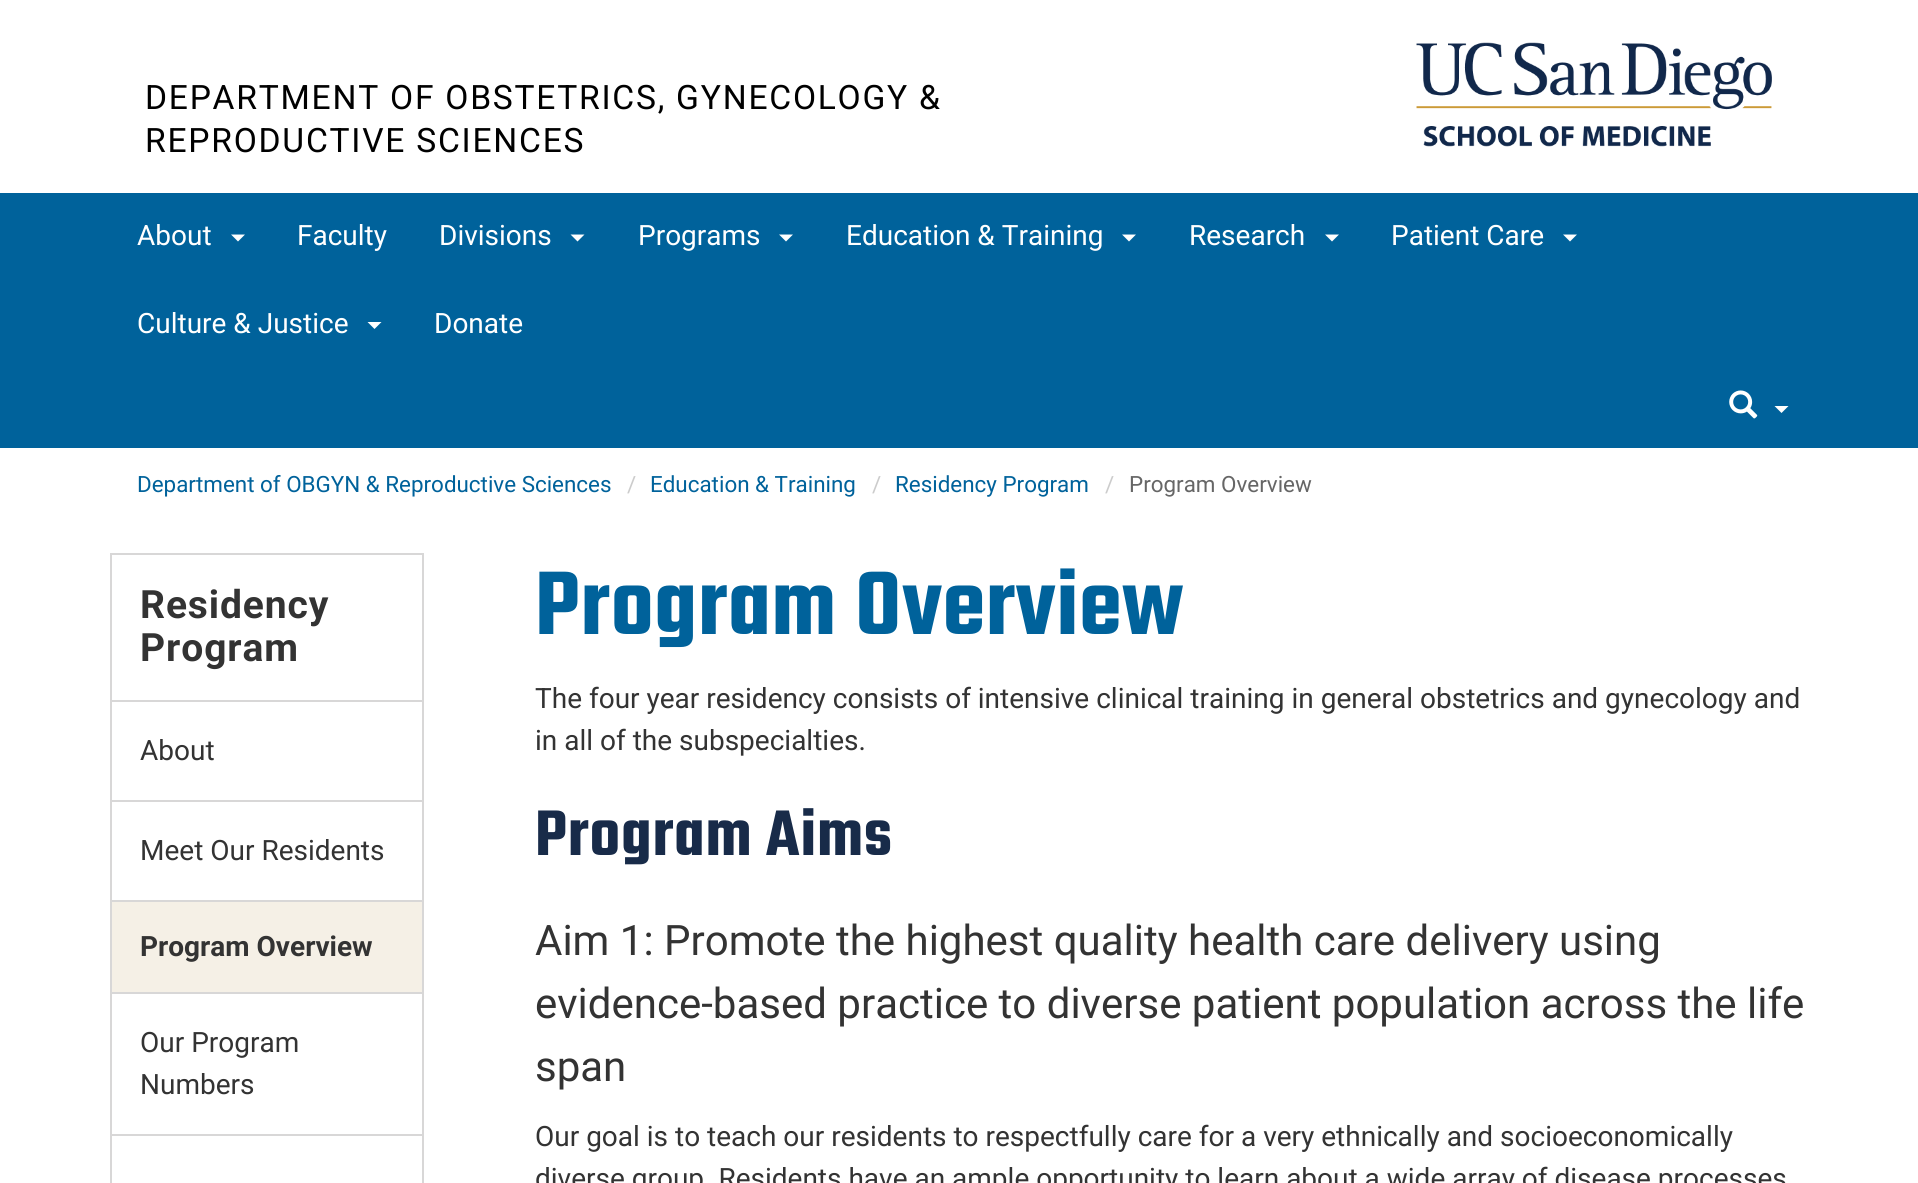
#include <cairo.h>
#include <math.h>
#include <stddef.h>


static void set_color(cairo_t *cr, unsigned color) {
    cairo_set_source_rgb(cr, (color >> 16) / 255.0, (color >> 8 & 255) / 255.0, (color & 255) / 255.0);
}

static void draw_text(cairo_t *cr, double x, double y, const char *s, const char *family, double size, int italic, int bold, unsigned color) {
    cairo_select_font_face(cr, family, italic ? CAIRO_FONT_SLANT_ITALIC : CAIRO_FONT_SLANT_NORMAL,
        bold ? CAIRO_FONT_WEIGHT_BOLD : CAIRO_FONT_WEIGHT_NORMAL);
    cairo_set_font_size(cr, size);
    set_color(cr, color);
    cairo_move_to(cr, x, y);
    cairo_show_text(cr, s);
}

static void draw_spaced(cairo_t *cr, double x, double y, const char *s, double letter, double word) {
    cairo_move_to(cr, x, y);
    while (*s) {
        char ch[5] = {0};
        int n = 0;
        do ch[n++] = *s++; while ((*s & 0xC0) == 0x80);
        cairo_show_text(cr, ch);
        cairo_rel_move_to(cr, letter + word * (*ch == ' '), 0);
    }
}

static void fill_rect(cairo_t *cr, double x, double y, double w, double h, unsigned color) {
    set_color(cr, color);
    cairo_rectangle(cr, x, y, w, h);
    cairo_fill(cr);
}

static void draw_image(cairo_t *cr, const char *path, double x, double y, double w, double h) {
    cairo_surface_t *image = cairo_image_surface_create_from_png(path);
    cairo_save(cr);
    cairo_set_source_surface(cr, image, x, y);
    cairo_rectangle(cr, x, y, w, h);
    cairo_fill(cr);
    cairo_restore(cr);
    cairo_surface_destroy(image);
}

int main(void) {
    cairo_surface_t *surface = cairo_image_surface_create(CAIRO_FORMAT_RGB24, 1918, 1183);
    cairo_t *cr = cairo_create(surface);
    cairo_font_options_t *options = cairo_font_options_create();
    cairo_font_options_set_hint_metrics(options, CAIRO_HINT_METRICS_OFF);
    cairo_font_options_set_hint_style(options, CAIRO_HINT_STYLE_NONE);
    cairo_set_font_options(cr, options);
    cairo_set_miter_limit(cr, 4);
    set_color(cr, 0xFFFFFF);
    cairo_paint(cr);
    cairo_select_font_face(cr, "Roboto", CAIRO_FONT_SLANT_NORMAL, CAIRO_FONT_WEIGHT_NORMAL);
    cairo_set_font_size(cr, 33.6);
    set_color(cr, 0x000000);
    draw_spaced(cr, 145, 109, "DEPARTMENT OF OBSTETRICS, GYNECOLOGY &", 1.75, 0);
    draw_spaced(cr, 145, 152, "REPRODUCTIVE SCIENCES", 1.75, 0);
    draw_image(cr, "assets/img1.png", 1416, 42, 356, 105);
    fill_rect(cr, 0, 193, 1918, 255, 0x00629B);
    draw_text(cr, 137, 245, "About", "Roboto", 28, 0, 0, 0xFFFFFF);
    cairo_new_path(cr);
    cairo_move_to(cr, 231, 234.5);
    cairo_line_to(cr, 245, 234.5);
    cairo_line_to(cr, 238, 241.5);
    cairo_close_path(cr);
    cairo_fill(cr);
    draw_text(cr, 297, 245, "Faculty", "Roboto", 28, 0, 0, 0xFFFFFF);
    draw_text(cr, 439, 245, "Divisions", "Roboto", 28, 0, 0, 0xFFFFFF);
    cairo_new_path(cr);
    cairo_move_to(cr, 570.5, 234.5);
    cairo_line_to(cr, 584.5, 234.5);
    cairo_line_to(cr, 577.5, 241.5);
    cairo_close_path(cr);
    cairo_fill(cr);
    draw_text(cr, 638, 245, "Programs", "Roboto", 28, 0, 0, 0xFFFFFF);
    cairo_new_path(cr);
    cairo_move_to(cr, 779, 234.5);
    cairo_line_to(cr, 793, 234.5);
    cairo_line_to(cr, 786, 241.5);
    cairo_close_path(cr);
    cairo_fill(cr);
    draw_text(cr, 846, 245, "Education & Training", "Roboto", 28, 0, 0, 0xFFFFFF);
    cairo_new_path(cr);
    cairo_move_to(cr, 1122, 234.5);
    cairo_line_to(cr, 1136, 234.5);
    cairo_line_to(cr, 1129, 241.5);
    cairo_close_path(cr);
    cairo_fill(cr);
    draw_text(cr, 1189, 245, "Research", "Roboto", 28, 0, 0, 0xFFFFFF);
    cairo_new_path(cr);
    cairo_move_to(cr, 1325, 234.5);
    cairo_line_to(cr, 1339, 234.5);
    cairo_line_to(cr, 1332, 241.5);
    cairo_close_path(cr);
    cairo_fill(cr);
    draw_text(cr, 1391, 245, "Patient Care", "Roboto", 28, 0, 0, 0xFFFFFF);
    cairo_new_path(cr);
    cairo_move_to(cr, 1563, 234.5);
    cairo_line_to(cr, 1577, 234.5);
    cairo_line_to(cr, 1570, 241.5);
    cairo_close_path(cr);
    cairo_fill(cr);
    draw_text(cr, 137, 333, "Culture & Justice", "Roboto", 28, 0, 0, 0xFFFFFF);
    cairo_new_path(cr);
    cairo_move_to(cr, 367.5, 322);
    cairo_line_to(cr, 381.5, 322);
    cairo_line_to(cr, 374.5, 329);
    cairo_close_path(cr);
    cairo_fill(cr);
    draw_text(cr, 434, 333, "Donate", "Roboto", 28, 0, 0, 0xFFFFFF);
    draw_image(cr, "assets/img2.png", 1729, 390, 29, 29);
    cairo_new_path(cr);
    cairo_move_to(cr, 1774.5, 406);
    cairo_line_to(cr, 1788.5, 406);
    cairo_line_to(cr, 1781.5, 413);
    cairo_close_path(cr);
    cairo_fill(cr);
    draw_text(cr, 137, 492, "Department of OBGYN & Reproductive Sciences", "Roboto", 22.4, 0, 0, 0x00629B);
    draw_text(cr, 627, 492, "/", "Roboto", 22.4, 0, 0, 0xCCCCCC);
    draw_text(cr, 650, 492, "Education & Training", "Roboto", 22.4, 0, 0, 0x00629B);
    draw_text(cr, 872, 492, "/", "Roboto", 22.4, 0, 0, 0xCCCCCC);
    draw_text(cr, 895, 492, "Residency Program", "Roboto", 22.4, 0, 0, 0x00629B);
    draw_text(cr, 1105, 492, "/", "Roboto", 22.4, 0, 0, 0xCCCCCC);
    draw_text(cr, 1129, 492, "Program Overview", "Roboto", 22.4, 0, 0, 0x666666);
    cairo_rectangle(cr, 111, 554, 312, 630);
    set_color(cr, 0xD8D7D7);
    cairo_stroke(cr);
    cairo_select_font_face(cr, "Roboto", CAIRO_FONT_SLANT_NORMAL, CAIRO_FONT_WEIGHT_BOLD);
    cairo_set_font_size(cr, 39);
    set_color(cr, 0x333333);
    draw_spaced(cr, 140, 618, "Residency", 0.9, 0);
    draw_spaced(cr, 140, 661, "Program", 0.9, 0);
    fill_rect(cr, 112, 700, 310, 2, 0xD8D7D7);
    draw_text(cr, 140, 760, "About", "Roboto", 28, 0, 0, 0x333333);
    fill_rect(cr, 112, 800, 310, 2, 0xD8D7D7);
    draw_text(cr, 140, 860, "Meet Our Residents", "Roboto", 28, 0, 0, 0x333333);
    fill_rect(cr, 112, 902, 310, 90, 0xF5F0E6);
    fill_rect(cr, 112, 900, 310, 2, 0xD8D7D7);
    draw_text(cr, 140, 956, "Program Overview", "Roboto", 28, 0, 1, 0x333333);
    fill_rect(cr, 112, 992, 310, 2, 0xD8D7D7);
    draw_text(cr, 140, 1052, "Our Program", "Roboto", 28, 0, 0, 0x333333);
    draw_text(cr, 140, 1094, "Numbers", "Roboto", 28, 0, 0, 0x333333);
    fill_rect(cr, 112, 1134, 310, 2, 0xD8D7D7);
    cairo_select_font_face(cr, "Teko SemiBold", CAIRO_FONT_SLANT_NORMAL, CAIRO_FONT_WEIGHT_NORMAL);
    cairo_set_font_size(cr, 98);
    set_color(cr, 0x00629B);
    draw_spaced(cr, 535, 634, "Program Overview", 0.9, 0);
    draw_text(cr, 535, 708, "The four year residency consists of intensive clinical training in general obstetrics and gynecology and", "Roboto", 28, 0, 0, 0x333333);
    draw_text(cr, 535, 750, "in all of the subspecialties.", "Roboto", 28, 0, 0, 0x333333);
    cairo_select_font_face(cr, "Teko SemiBold", CAIRO_FONT_SLANT_NORMAL, CAIRO_FONT_WEIGHT_NORMAL);
    cairo_set_font_size(cr, 70);
    set_color(cr, 0x182B49);
    draw_spaced(cr, 535, 855, "Program Aims", 0.9, 0);
    draw_text(cr, 535, 955, "Aim 1: Promote the highest quality health care delivery using", "Roboto", 42, 0, 0, 0x333333);
    draw_text(cr, 535, 1018, "evidence-based practice to diverse patient population across the life", "Roboto", 42, 0, 0, 0x333333);
    draw_text(cr, 535, 1081, "span", "Roboto", 42, 0, 0, 0x333333);
    draw_text(cr, 535, 1146, "Our goal is to teach our residents to respectfully care for a very ethnically and socioeconomically", "Roboto", 28, 0, 0, 0x333333);
    draw_text(cr, 535, 1188, "diverse group. Residents have an ample opportunity to learn about a wide array of disease processes", "Roboto", 28, 0, 0, 0x333333);
    cairo_surface_write_to_png(surface, "output.png");
    cairo_font_options_destroy(options);
    cairo_destroy(cr);
    cairo_surface_destroy(surface);
    return 0;
}
